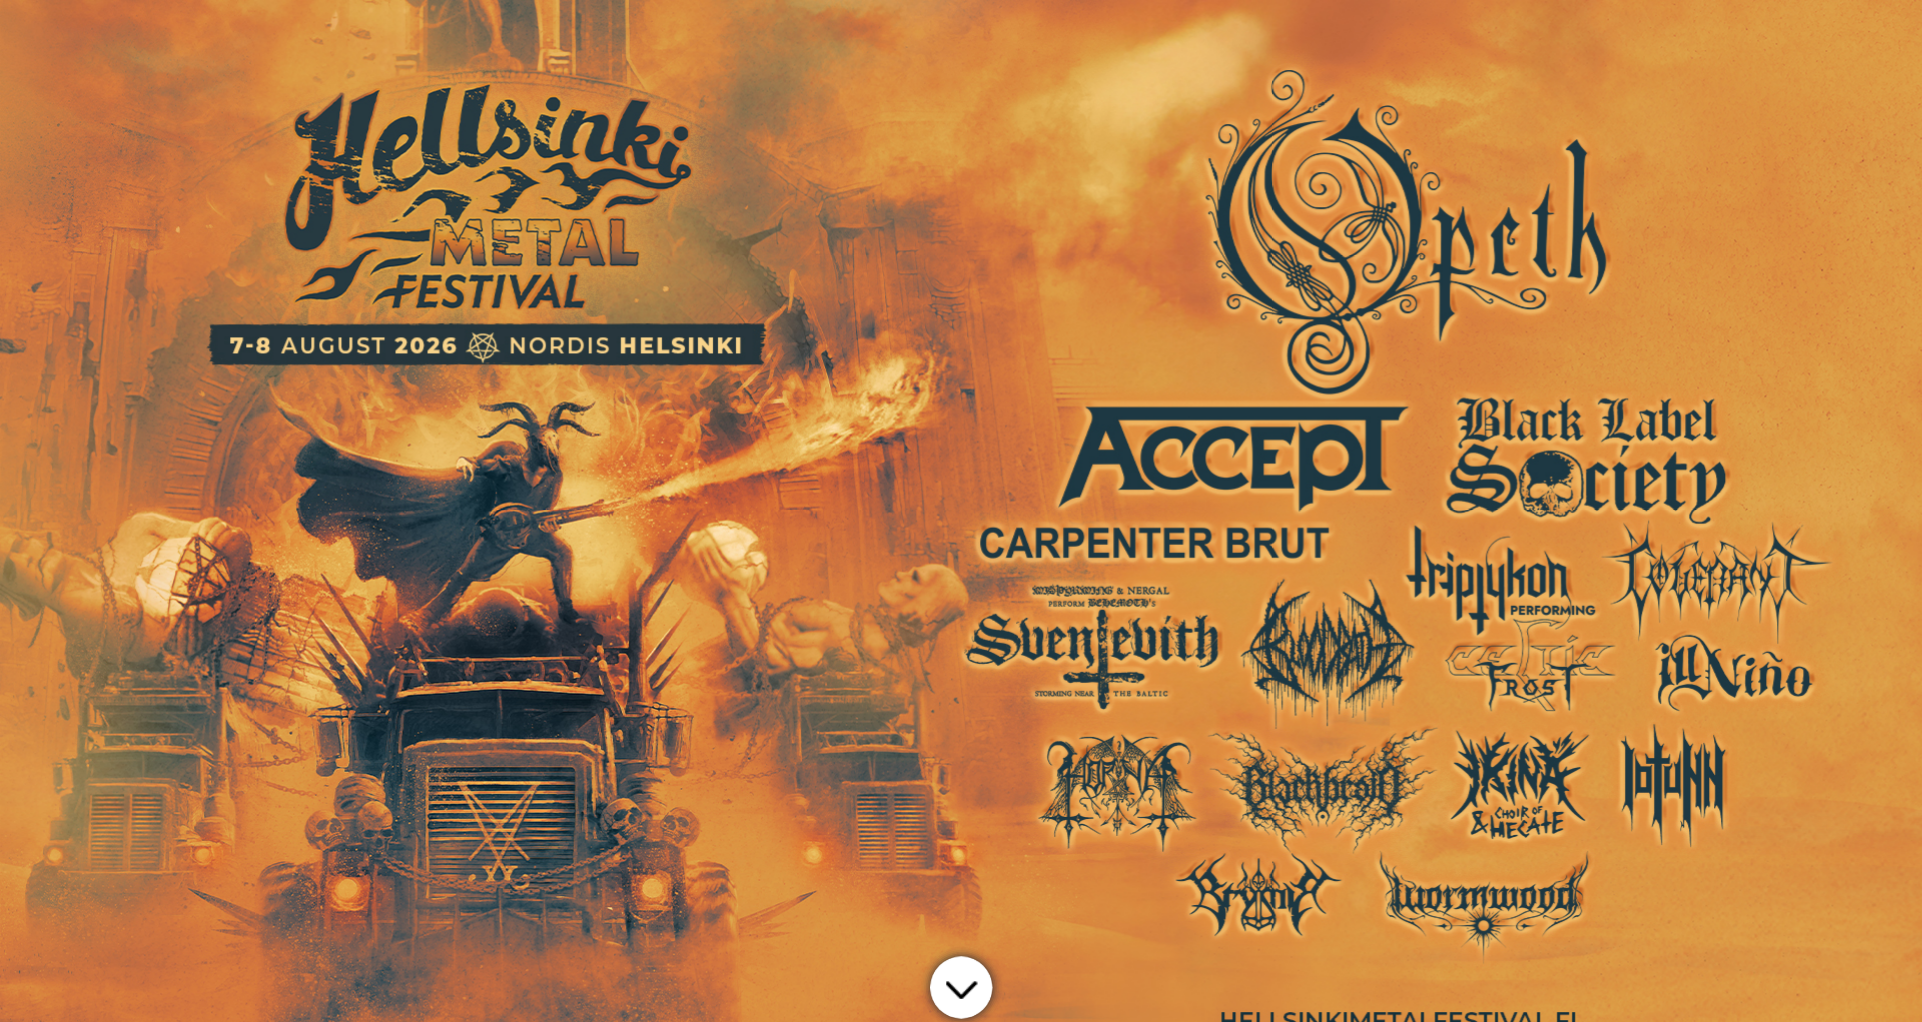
#include <cairo.h>
#include <math.h>
#include <stddef.h>


static void set_color(cairo_t *cr, unsigned color) {
    cairo_set_source_rgb(cr, (color >> 16) / 255.0, (color >> 8 & 255) / 255.0, (color & 255) / 255.0);
}

static void rounded_rect(cairo_t *cr, double x, double y, double w, double h, double r) {
    cairo_new_sub_path(cr);
    cairo_arc(cr, x + w - r, y + h - r, r, 0, M_PI / 2);
    cairo_arc(cr, x + r, y + h - r, r, M_PI / 2, M_PI);
    cairo_arc(cr, x + r, y + r, r, M_PI, 1.5 * M_PI);
    cairo_arc(cr, x + w - r, y + r, r, 1.5 * M_PI, 2 * M_PI);
    cairo_close_path(cr);
}

static void draw_shadow(cairo_t *cr, double x, double y, double w, double h, double r, double blur, double alpha) {
    cairo_push_group_with_content(cr, CAIRO_CONTENT_ALPHA);
    cairo_set_operator(cr, CAIRO_OPERATOR_SOURCE);
    for (int i = 15; i >= -15 && fmin(w, h) + blur * i / 3 > 0; i -= 2) {
        double e = blur * i / 6;
        cairo_set_source_rgba(cr, 0, 0, 0, alpha * erfc((i - 1) / 8.5) / 2);
        rounded_rect(cr, x - e, y - e, w + 2 * e, h + 2 * e, fmax(0, fmin(r + e + blur * .6, fmin(w, h) / 2 + e)));
        cairo_fill(cr);
    }
    cairo_pattern_t *soft = cairo_pop_group(cr);
    cairo_mask(cr, soft);
    cairo_pattern_destroy(soft);
}

static void draw_image(cairo_t *cr, const char *path, double x, double y, double w, double h) {
    cairo_surface_t *image = cairo_image_surface_create_from_png(path);
    cairo_save(cr);
    cairo_set_source_surface(cr, image, x, y);
    cairo_rectangle(cr, x, y, w, h);
    cairo_fill(cr);
    cairo_restore(cr);
    cairo_surface_destroy(image);
}

int main(void) {
    cairo_surface_t *surface = cairo_image_surface_create(CAIRO_FORMAT_RGB24, 1922, 1022);
    cairo_t *cr = cairo_create(surface);
    cairo_font_options_t *options = cairo_font_options_create();
    cairo_font_options_set_hint_metrics(options, CAIRO_HINT_METRICS_OFF);
    cairo_font_options_set_hint_style(options, CAIRO_HINT_STYLE_NONE);
    cairo_set_font_options(cr, options);
    cairo_set_miter_limit(cr, 4);
    set_color(cr, 0xFFFFFF);
    cairo_paint(cr);
    draw_image(cr, "assets/img1.png", 0, 0, 1922, 1022);
    set_color(cr, 0x333333);
    draw_shadow(cr, 930, 956, 63, 63, 31.5, 5, 1);
    draw_image(cr, "assets/img2.png", 930, 956, 63, 63);
    cairo_surface_write_to_png(surface, "output.png");
    cairo_font_options_destroy(options);
    cairo_destroy(cr);
    cairo_surface_destroy(surface);
    return 0;
}
